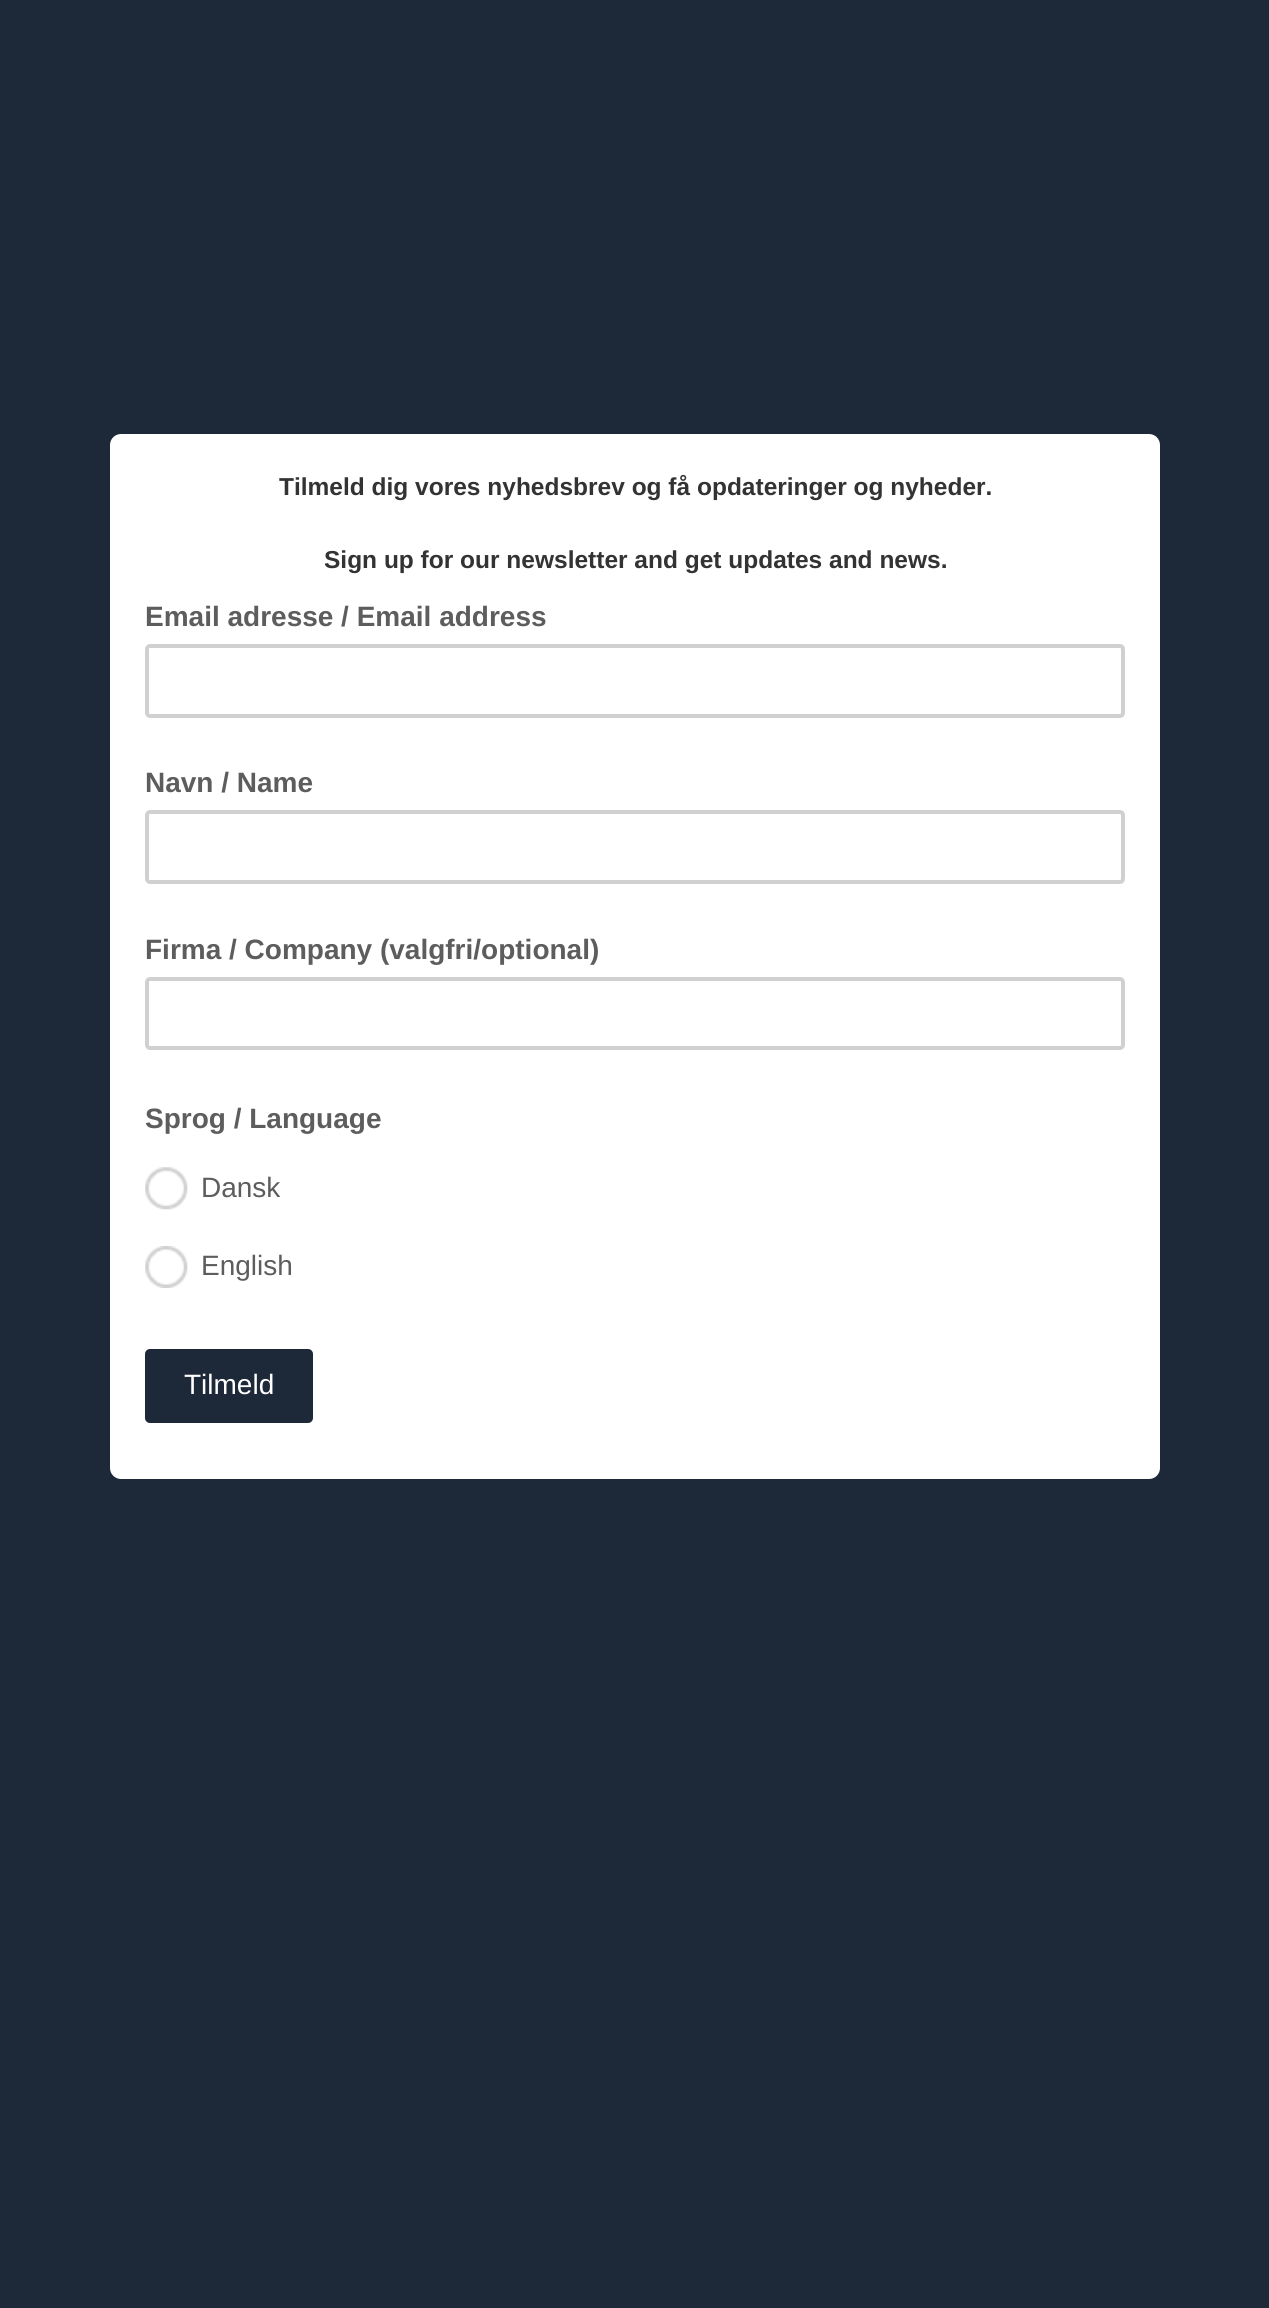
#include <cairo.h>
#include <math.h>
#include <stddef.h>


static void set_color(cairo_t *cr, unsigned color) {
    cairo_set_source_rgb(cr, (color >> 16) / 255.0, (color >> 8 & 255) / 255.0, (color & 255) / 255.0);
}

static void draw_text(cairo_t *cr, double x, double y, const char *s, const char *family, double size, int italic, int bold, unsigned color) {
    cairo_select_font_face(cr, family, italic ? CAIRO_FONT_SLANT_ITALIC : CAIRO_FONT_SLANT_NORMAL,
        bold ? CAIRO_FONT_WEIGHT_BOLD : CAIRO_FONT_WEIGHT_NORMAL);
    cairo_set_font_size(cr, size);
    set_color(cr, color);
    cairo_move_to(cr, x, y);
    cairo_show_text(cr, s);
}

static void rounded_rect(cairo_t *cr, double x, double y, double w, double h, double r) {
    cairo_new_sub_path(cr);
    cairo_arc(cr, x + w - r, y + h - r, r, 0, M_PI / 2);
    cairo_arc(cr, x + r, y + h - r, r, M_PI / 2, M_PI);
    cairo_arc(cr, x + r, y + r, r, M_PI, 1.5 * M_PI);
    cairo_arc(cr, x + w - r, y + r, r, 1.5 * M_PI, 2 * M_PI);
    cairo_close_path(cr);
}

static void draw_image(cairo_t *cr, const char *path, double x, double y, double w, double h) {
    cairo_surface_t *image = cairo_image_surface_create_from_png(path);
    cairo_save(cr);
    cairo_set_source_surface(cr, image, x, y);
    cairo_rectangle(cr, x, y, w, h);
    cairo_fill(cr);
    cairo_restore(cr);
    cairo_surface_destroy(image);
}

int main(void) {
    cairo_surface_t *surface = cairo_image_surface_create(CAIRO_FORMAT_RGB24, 1269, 2308);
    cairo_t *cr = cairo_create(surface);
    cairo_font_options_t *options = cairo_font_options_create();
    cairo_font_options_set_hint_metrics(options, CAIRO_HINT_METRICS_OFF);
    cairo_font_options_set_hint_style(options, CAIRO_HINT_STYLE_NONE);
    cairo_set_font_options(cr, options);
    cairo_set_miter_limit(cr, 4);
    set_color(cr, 0x1D2839);
    cairo_paint(cr);
    set_color(cr, 0xFFFFFF);
    rounded_rect(cr, 110, 434, 1050, 1045, 11);
    cairo_fill(cr);
    draw_text(cr, 279, 495, "Tilmeld dig vores nyhedsbrev og få opdateringer og nyheder.", "Liberation Sans", 24.5, 0, 1, 0x333333);
    draw_text(cr, 324, 568, "Sign up for our newsletter and get updates and news.", "Liberation Sans", 24.5, 0, 1, 0x333333);
    draw_text(cr, 145, 626, "Email adresse / Email address", "Liberation Sans", 28, 0, 1, 0x5D5D5D);
    rounded_rect(cr, 147, 646, 976, 70, 3);
    set_color(cr, 0xD0D0D0);
    cairo_set_line_width(cr, 4);
    cairo_stroke(cr);
    draw_text(cr, 145, 792, "Navn / Name", "Liberation Sans", 28, 0, 1, 0x5D5D5D);
    rounded_rect(cr, 147, 812, 976, 70, 3);
    set_color(cr, 0xD0D0D0);
    cairo_stroke(cr);
    draw_text(cr, 145, 959, "Firma / Company (valgfri/optional)", "Liberation Sans", 28, 0, 1, 0x5D5D5D);
    rounded_rect(cr, 147, 979, 976, 69, 3);
    set_color(cr, 0xD0D0D0);
    cairo_stroke(cr);
    draw_text(cr, 145, 1128, "Sprog / Language", "Liberation Sans", 28, 0, 1, 0x5D5D5D);
    draw_image(cr, "assets/img1.png", 145, 1167, 43, 43);
    draw_text(cr, 201, 1197, "Dansk", "Liberation Sans", 28, 0, 0, 0x5D5D5D);
    draw_image(cr, "assets/img2.png", 145, 1246, 43, 42);
    draw_text(cr, 201, 1275, "English", "Liberation Sans", 28, 0, 0, 0x5D5D5D);
    set_color(cr, 0x1D2839);
    rounded_rect(cr, 145, 1349, 168, 74, 5);
    cairo_fill(cr);
    draw_text(cr, 184, 1394, "Tilmeld", "Liberation Sans", 28, 0, 0, 0xFFFFFF);
    cairo_surface_write_to_png(surface, "output.png");
    cairo_font_options_destroy(options);
    cairo_destroy(cr);
    cairo_surface_destroy(surface);
    return 0;
}
